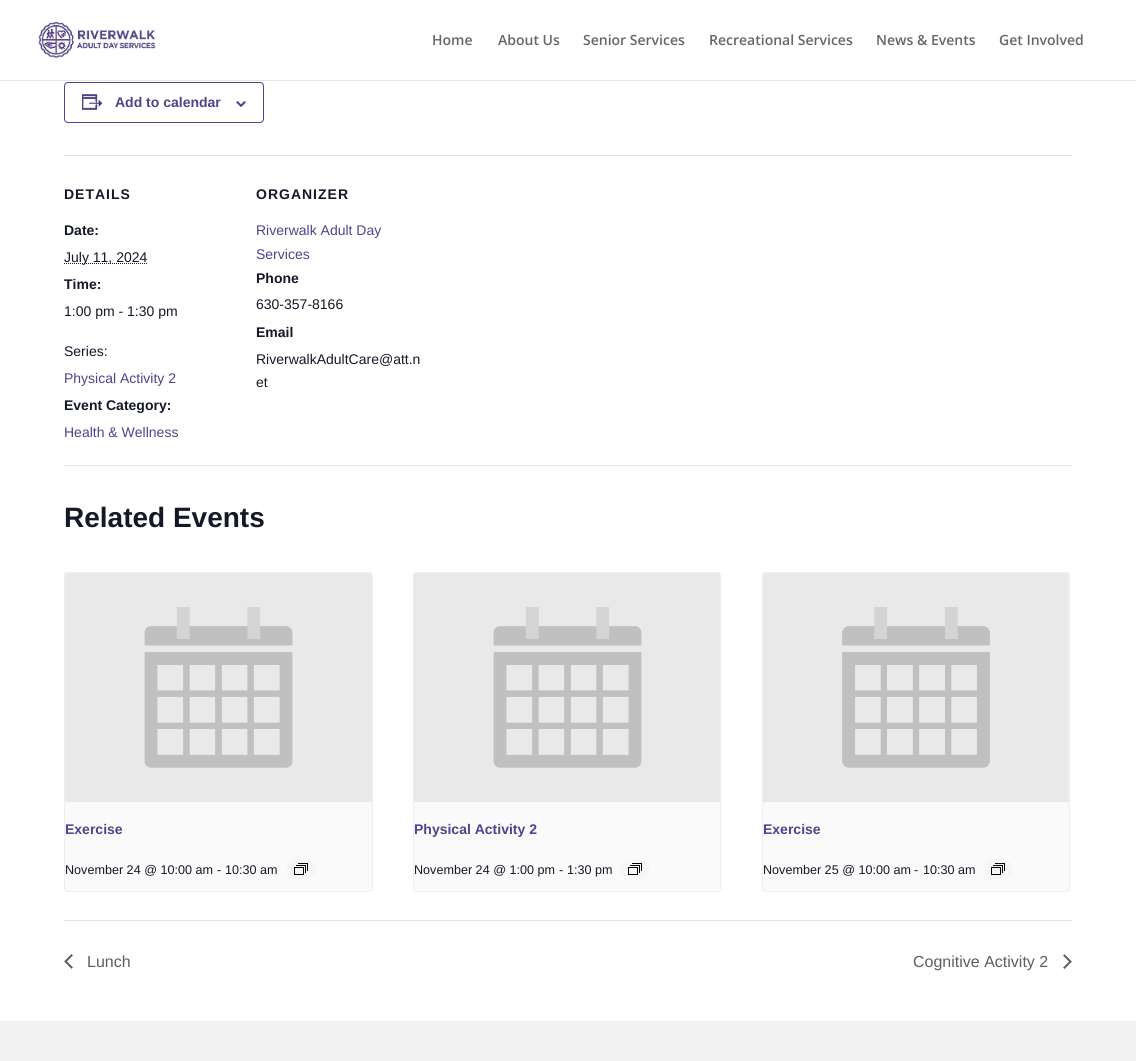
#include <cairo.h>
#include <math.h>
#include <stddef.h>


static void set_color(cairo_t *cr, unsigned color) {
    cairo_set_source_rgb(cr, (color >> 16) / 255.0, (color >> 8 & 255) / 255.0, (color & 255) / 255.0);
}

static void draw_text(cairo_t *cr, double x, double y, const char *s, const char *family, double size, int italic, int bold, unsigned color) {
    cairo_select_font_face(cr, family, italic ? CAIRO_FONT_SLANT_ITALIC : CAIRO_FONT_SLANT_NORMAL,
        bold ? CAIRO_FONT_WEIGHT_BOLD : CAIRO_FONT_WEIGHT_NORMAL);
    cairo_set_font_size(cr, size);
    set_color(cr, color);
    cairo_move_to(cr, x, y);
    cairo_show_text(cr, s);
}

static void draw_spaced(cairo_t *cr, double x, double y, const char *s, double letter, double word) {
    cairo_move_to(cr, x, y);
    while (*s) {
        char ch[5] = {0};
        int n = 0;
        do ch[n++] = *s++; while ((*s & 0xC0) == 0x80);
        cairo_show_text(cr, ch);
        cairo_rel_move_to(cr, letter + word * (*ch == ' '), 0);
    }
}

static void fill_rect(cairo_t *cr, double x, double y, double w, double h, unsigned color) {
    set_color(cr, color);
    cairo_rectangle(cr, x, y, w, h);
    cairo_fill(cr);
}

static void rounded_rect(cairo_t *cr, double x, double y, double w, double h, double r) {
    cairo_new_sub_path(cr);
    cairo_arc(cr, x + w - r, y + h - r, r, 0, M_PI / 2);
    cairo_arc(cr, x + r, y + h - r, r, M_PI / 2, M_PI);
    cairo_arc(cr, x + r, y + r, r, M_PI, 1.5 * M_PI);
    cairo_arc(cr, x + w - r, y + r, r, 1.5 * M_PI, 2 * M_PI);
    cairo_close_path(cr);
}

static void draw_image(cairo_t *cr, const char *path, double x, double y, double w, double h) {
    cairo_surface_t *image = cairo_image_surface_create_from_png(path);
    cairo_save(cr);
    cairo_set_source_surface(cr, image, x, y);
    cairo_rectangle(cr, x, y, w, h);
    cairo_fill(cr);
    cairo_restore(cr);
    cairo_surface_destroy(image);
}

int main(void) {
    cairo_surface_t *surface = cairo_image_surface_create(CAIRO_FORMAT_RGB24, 1136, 1061);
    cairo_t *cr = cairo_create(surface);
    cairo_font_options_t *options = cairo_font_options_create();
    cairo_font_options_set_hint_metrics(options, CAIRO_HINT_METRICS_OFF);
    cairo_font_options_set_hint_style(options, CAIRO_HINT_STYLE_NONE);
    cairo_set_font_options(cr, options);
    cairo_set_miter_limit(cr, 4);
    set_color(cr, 0xFFFFFF);
    cairo_paint(cr);
    fill_rect(cr, 0, 80, 1136, 1, 0xE6E6E6);
    draw_image(cr, "assets/img1.png", 38, 21, 118, 38);
    draw_text(cr, 432, 45, "Home", "Open Sans SemiBold", 14, 0, 0, 0x666666);
    draw_text(cr, 498, 45, "About Us", "Open Sans SemiBold", 14, 0, 0, 0x666666);
    draw_text(cr, 583, 45, "Senior Services", "Open Sans SemiBold", 14, 0, 0, 0x666666);
    draw_text(cr, 709, 45, "Recreational Services", "Open Sans SemiBold", 14, 0, 0, 0x666666);
    draw_text(cr, 876, 45, "News & Events", "Open Sans SemiBold", 14, 0, 0, 0x666666);
    draw_text(cr, 999, 45, "Get Involved", "Open Sans SemiBold", 14, 0, 0, 0x666666);
    rounded_rect(cr, 64.5, 82.5, 199, 40, 3.5);
    set_color(cr, 0x51428B);
    cairo_set_line_width(cr, 1);
    cairo_stroke(cr);
    draw_image(cr, "assets/img2.png", 82, 94, 21, 16);
    draw_text(cr, 115, 107, "Add to calendar", "Liberation Sans", 14, 0, 1, 0x51428B);
    draw_image(cr, "assets/img3.png", 236, 101, 10, 6);
    fill_rect(cr, 64, 155, 1008, 1, 0xE4E4E4);
    set_color(cr, 0x141827);
    draw_spaced(cr, 64, 199, "DETAILS", 1, 0);
    draw_text(cr, 64, 235, "Date:", "Liberation Sans", 14, 0, 1, 0x141827);
    cairo_new_path(cr);
    cairo_move_to(cr, 64, 263.5);
    cairo_line_to(cr, 147.5, 263.5);
    cairo_set_dash(cr, (double[]){1, 1}, 2, 0);
    cairo_stroke(cr);
    draw_text(cr, 64, 262, "July 11, 2024", "Liberation Sans", 14, 0, 0, 0x141827);
    draw_text(cr, 64, 289, "Time:", "Liberation Sans", 14, 0, 1, 0x141827);
    draw_text(cr, 64, 316, "1:00 pm - 1:30 pm", "Liberation Sans", 14, 0, 0, 0x141827);
    draw_text(cr, 64, 356, "Series:", "Liberation Sans", 14, 0, 0, 0x141827);
    draw_text(cr, 64, 383, "Physical Activity 2", "Liberation Sans", 14, 0, 0, 0x51428B);
    draw_text(cr, 64, 410, "Event Category:", "Liberation Sans", 14, 0, 1, 0x141827);
    draw_text(cr, 64, 437, "Health & Wellness", "Liberation Sans", 14, 0, 0, 0x51428B);
    cairo_select_font_face(cr, "Liberation Sans", CAIRO_FONT_SLANT_NORMAL, CAIRO_FONT_WEIGHT_BOLD);
    set_color(cr, 0x141827);
    draw_spaced(cr, 256, 199, "ORGANIZER", 1, 0);
    draw_text(cr, 256, 235, "Riverwalk Adult Day", "Liberation Sans", 14, 0, 0, 0x51428B);
    draw_text(cr, 256, 259, "Services", "Liberation Sans", 14, 0, 0, 0x51428B);
    draw_text(cr, 256, 283, "Phone", "Liberation Sans", 14, 0, 1, 0x141827);
    draw_text(cr, 256, 309, "630-357-8166", "Liberation Sans", 14, 0, 0, 0x141827);
    draw_text(cr, 256, 337, "Email", "Liberation Sans", 14, 0, 1, 0x141827);
    draw_text(cr, 256, 364, "RiverwalkAdultCare@att.n", "Liberation Sans", 14, 0, 0, 0x141827);
    draw_text(cr, 256, 387, "et", "Liberation Sans", 14, 0, 0, 0x141827);
    fill_rect(cr, 64, 465, 1008, 1, 0xE4E4E4);
    draw_text(cr, 64, 527, "Related Events", "Liberation Sans", 28, 0, 1, 0x141827);
    set_color(cr, 0xFAFAFA);
    rounded_rect(cr, 64.5, 572.5, 308, 319, 2.5);
    cairo_fill_preserve(cr);
    set_color(cr, 0xEEEEEE);
    cairo_set_dash(cr, NULL, 0, 0);
    cairo_stroke(cr);
    draw_image(cr, "assets/img4.png", 65, 573, 307, 229);
    draw_text(cr, 65, 834, "Exercise", "Liberation Sans", 14, 0, 1, 0x51428B);
    draw_text(cr, 65, 874, "November 24 @ 10:00 am", "Liberation Sans", 12.6, 0, 0, 0x141827);
    draw_text(cr, 217, 874, "-", "Liberation Sans", 12.6, 0, 0, 0x141827);
    draw_text(cr, 225, 874, "10:30 am", "Liberation Sans", 12.6, 0, 0, 0x141827);
    set_color(cr, 0xF7F6F6);
    rounded_rect(cr, 286, 859, 30, 20, 10);
    cairo_fill(cr);
    draw_image(cr, "assets/img5.png", 294, 863, 14, 12);
    set_color(cr, 0xFAFAFA);
    rounded_rect(cr, 413.5, 572.5, 307, 319, 2.5);
    cairo_fill_preserve(cr);
    set_color(cr, 0xEEEEEE);
    cairo_stroke(cr);
    draw_image(cr, "assets/img6.png", 414, 573, 306, 229);
    draw_text(cr, 414, 834, "Physical Activity 2", "Liberation Sans", 14, 0, 1, 0x51428B);
    draw_text(cr, 414, 874, "November 24 @ 1:00 pm", "Liberation Sans", 12.6, 0, 0, 0x141827);
    draw_text(cr, 559, 874, "-", "Liberation Sans", 12.6, 0, 0, 0x141827);
    draw_text(cr, 567, 874, "1:30 pm", "Liberation Sans", 12.6, 0, 0, 0x141827);
    set_color(cr, 0xF7F6F6);
    rounded_rect(cr, 620, 859, 30, 20, 10);
    cairo_fill(cr);
    draw_image(cr, "assets/img5.png", 628, 863, 14, 12);
    set_color(cr, 0xFAFAFA);
    rounded_rect(cr, 762.5, 572.5, 307, 319, 2.5);
    cairo_fill_preserve(cr);
    set_color(cr, 0xEEEEEE);
    cairo_stroke(cr);
    draw_image(cr, "assets/img7.png", 763, 573, 306, 229);
    draw_text(cr, 763, 834, "Exercise", "Liberation Sans", 14, 0, 1, 0x51428B);
    draw_text(cr, 763, 874, "November 25 @ 10:00 am", "Liberation Sans", 12.6, 0, 0, 0x141827);
    draw_text(cr, 914, 874, "-", "Liberation Sans", 12.6, 0, 0, 0x141827);
    draw_text(cr, 923, 874, "10:30 am", "Liberation Sans", 12.6, 0, 0, 0x141827);
    set_color(cr, 0xF7F6F6);
    rounded_rect(cr, 983, 859, 30, 20, 10);
    cairo_fill(cr);
    draw_image(cr, "assets/img5.png", 991, 863, 14, 12);
    fill_rect(cr, 64, 920, 1008, 1, 0xE4E4E4);
    draw_image(cr, "assets/img8.png", 64, 954, 9, 15);
    draw_text(cr, 87, 967, "Lunch", "Liberation Sans", 16, 0, 0, 0x5D5D5D);
    draw_text(cr, 913, 967, "Cognitive Activity 2", "Liberation Sans", 16, 0, 0, 0x5D5D5D);
    draw_image(cr, "assets/img9.png", 1063, 954, 9, 15);
    fill_rect(cr, 0, 1021, 1136, 40, 0xF2F2F2);
    cairo_surface_write_to_png(surface, "output.png");
    cairo_font_options_destroy(options);
    cairo_destroy(cr);
    cairo_surface_destroy(surface);
    return 0;
}
